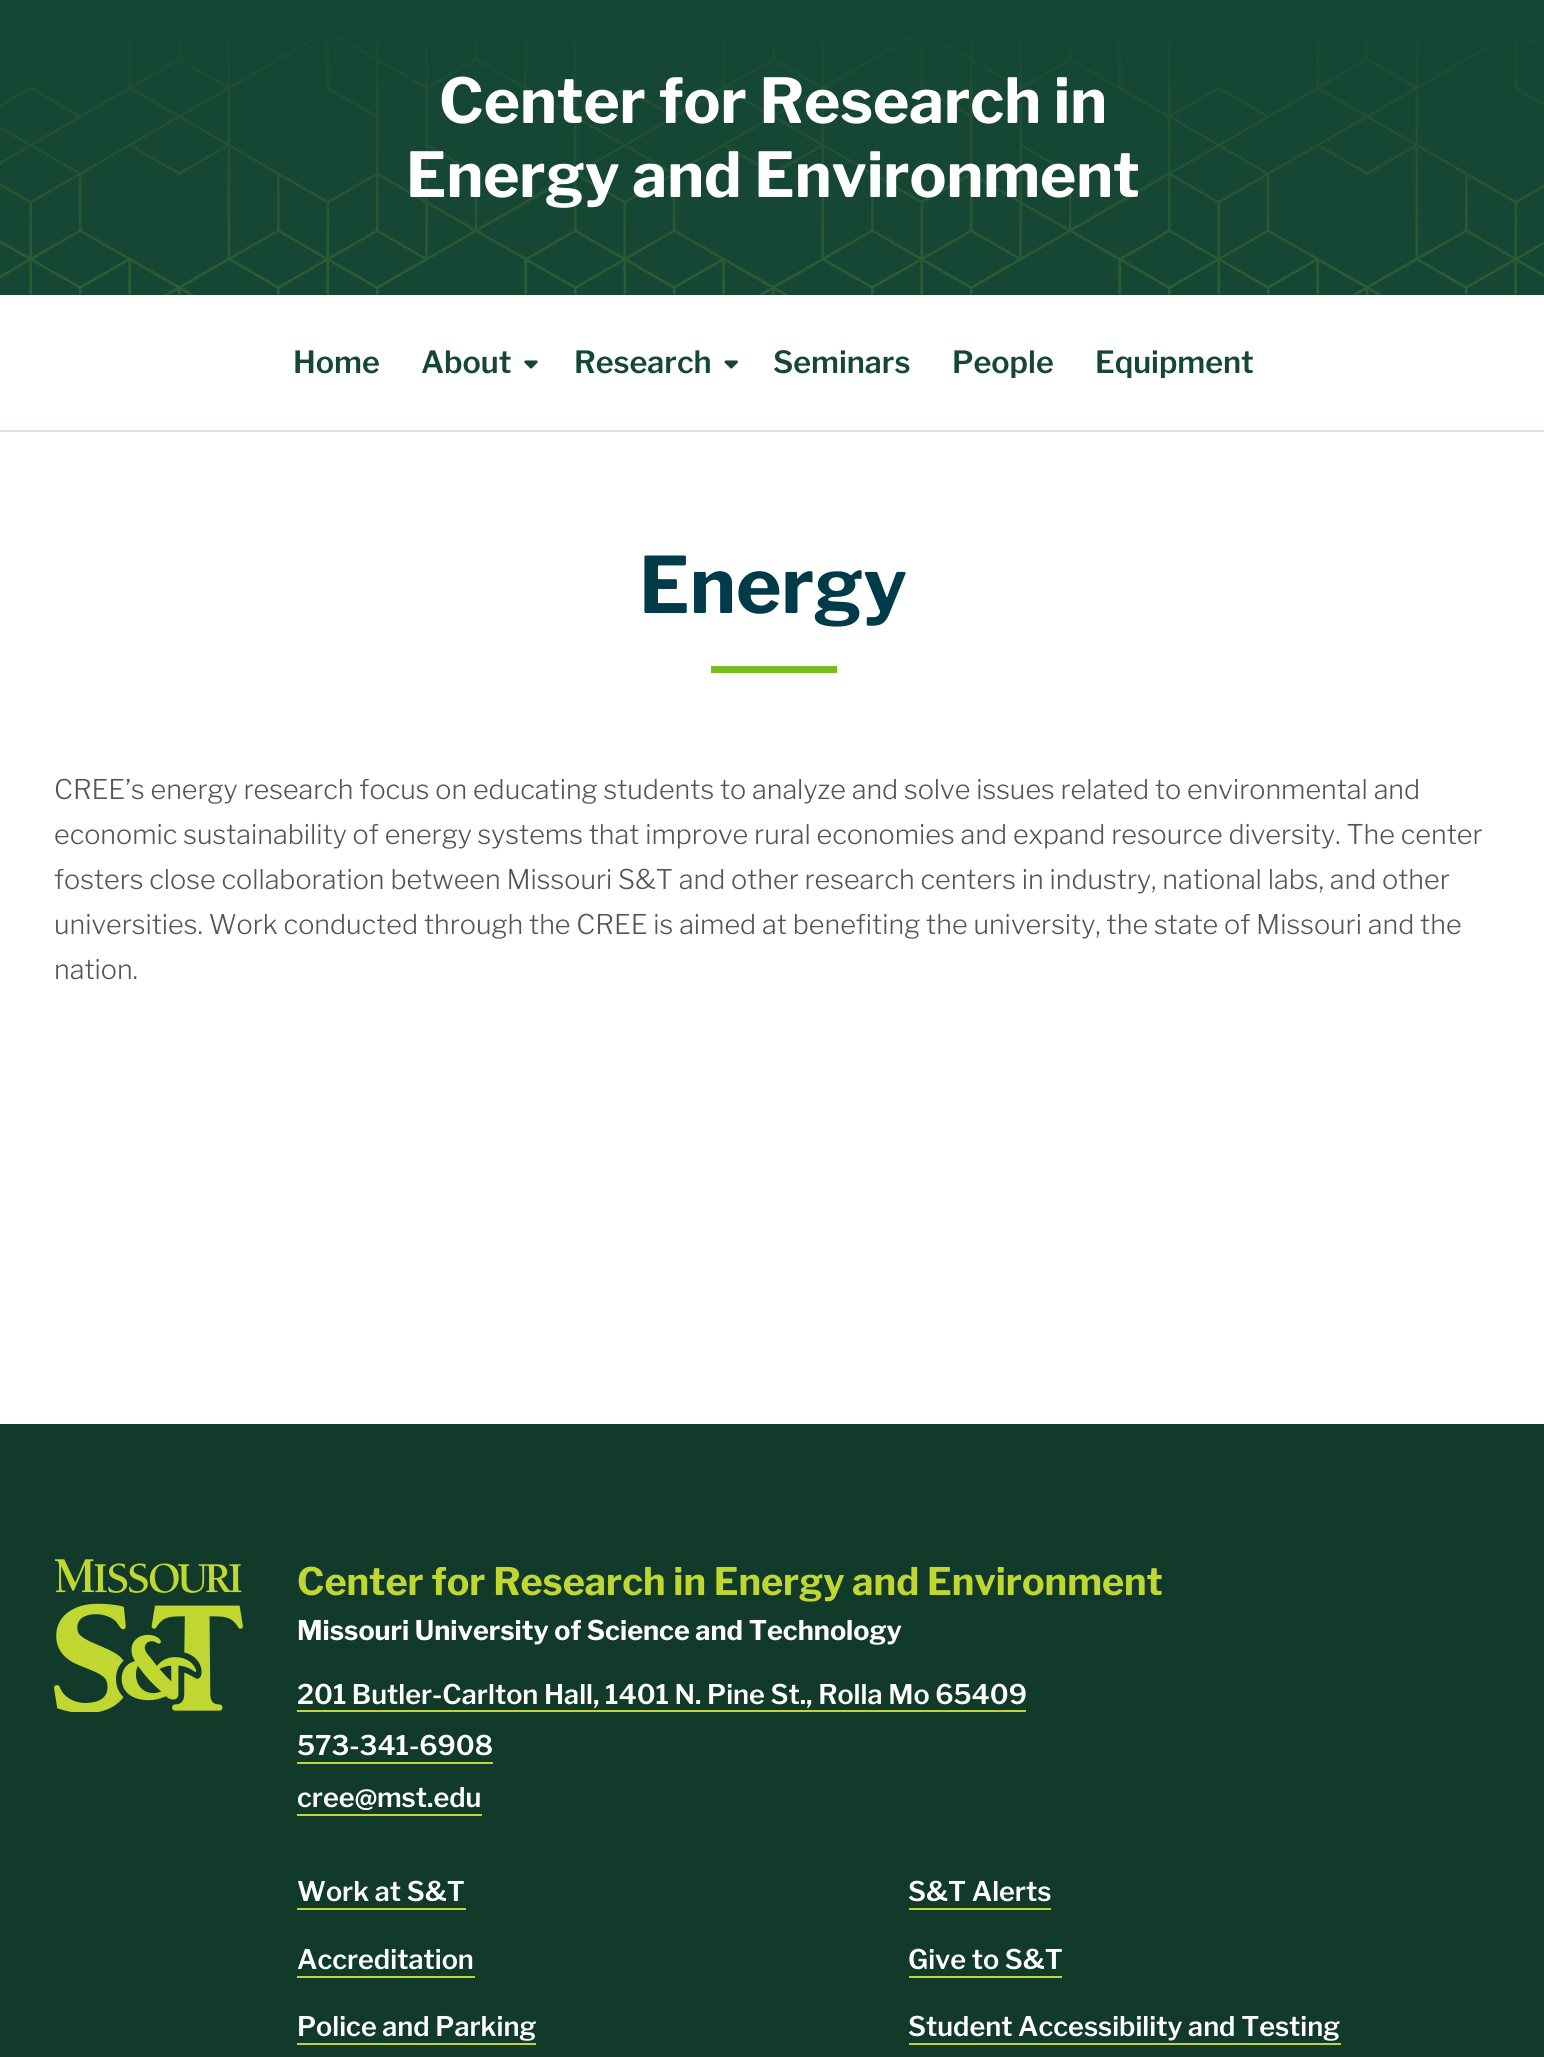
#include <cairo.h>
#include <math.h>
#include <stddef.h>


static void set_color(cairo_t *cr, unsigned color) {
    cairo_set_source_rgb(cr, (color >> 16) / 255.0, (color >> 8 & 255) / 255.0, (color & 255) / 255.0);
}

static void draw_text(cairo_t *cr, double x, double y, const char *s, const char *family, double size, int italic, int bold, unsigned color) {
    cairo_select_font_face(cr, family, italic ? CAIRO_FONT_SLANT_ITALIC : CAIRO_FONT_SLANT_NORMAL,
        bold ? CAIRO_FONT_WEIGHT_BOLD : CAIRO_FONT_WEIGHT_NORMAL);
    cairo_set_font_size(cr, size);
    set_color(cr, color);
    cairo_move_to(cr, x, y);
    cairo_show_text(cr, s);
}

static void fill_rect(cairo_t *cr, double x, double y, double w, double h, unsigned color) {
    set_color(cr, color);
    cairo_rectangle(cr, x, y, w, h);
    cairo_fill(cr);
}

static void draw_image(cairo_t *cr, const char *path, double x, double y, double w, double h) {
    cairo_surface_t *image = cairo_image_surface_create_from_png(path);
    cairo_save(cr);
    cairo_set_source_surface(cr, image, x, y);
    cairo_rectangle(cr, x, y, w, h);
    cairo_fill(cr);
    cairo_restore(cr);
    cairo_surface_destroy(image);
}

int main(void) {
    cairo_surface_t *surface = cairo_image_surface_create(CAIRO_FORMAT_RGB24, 1544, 2057);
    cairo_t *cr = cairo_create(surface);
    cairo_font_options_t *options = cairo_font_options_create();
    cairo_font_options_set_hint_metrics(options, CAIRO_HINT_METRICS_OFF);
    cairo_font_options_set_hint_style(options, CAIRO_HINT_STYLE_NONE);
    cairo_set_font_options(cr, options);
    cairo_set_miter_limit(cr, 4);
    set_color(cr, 0xFFFFFF);
    cairo_paint(cr);
    fill_rect(cr, 0, 0, 1544, 295, 0x154734);
    draw_image(cr, "assets/img1.png", 0, 37, 1544, 258);
    draw_text(cr, 439, 123, "Center for Research in", "Libre Franklin", 61.75, 0, 1, 0xFFFFFF);
    draw_text(cr, 406, 197, "Energy and Environment", "Libre Franklin", 61.75, 0, 1, 0xFFFFFF);
    fill_rect(cr, 0, 430, 1544, 2, 0xDCE3E4);
    draw_text(cr, 293, 373, "Home", "Libre Franklin SemiBold", 30.5, 0, 0, 0x154734);
    draw_text(cr, 421, 373, "About", "Libre Franklin SemiBold", 30.5, 0, 0, 0x154734);
    draw_image(cr, "assets/img2.png", 524, 360, 14, 9);
    draw_text(cr, 574, 373, "Research", "Libre Franklin SemiBold", 30.5, 0, 0, 0x154734);
    draw_image(cr, "assets/img3.png", 724, 360, 14, 9);
    draw_text(cr, 773, 373, "Seminars", "Libre Franklin SemiBold", 30.5, 0, 0, 0x154734);
    draw_text(cr, 952, 373, "People", "Libre Franklin SemiBold", 30.5, 0, 0, 0x154734);
    draw_text(cr, 1095, 373, "Equipment", "Libre Franklin SemiBold", 30.5, 0, 0, 0x154734);
    draw_text(cr, 639, 613, "Energy", "Libre Franklin", 77.5, 0, 1, 0x003B49);
    fill_rect(cr, 711, 666, 126, 7, 0x78BE20);
    draw_text(cr, 54, 799, "CREE’s energy research focus on educating students to analyze and solve issues related to environmental and", "Libre Franklin Light", 27, 0, 0, 0x555555);
    draw_text(cr, 54, 844, "economic sustainability of energy systems that improve rural economies and expand resource diversity. The center", "Libre Franklin Light", 27, 0, 0, 0x555555);
    draw_text(cr, 54, 889, "fosters close collaboration between Missouri S&T and other research centers in industry, national labs, and other", "Libre Franklin Light", 27, 0, 0, 0x555555);
    draw_text(cr, 54, 934, "universities. Work conducted through the CREE is aimed at benefiting the university, the state of Missouri and the", "Libre Franklin Light", 27, 0, 0, 0x555555);
    draw_text(cr, 54, 979, "nation.", "Libre Franklin Light", 27, 0, 0, 0x555555);
    fill_rect(cr, 0, 1424, 1544, 633, 0x113A2A);
    draw_image(cr, "assets/img4.png", 54, 1559, 189, 153);
    draw_text(cr, 297, 1595, "Center for Research in Energy and Environment", "Libre Franklin", 37.8, 0, 1, 0xBFD730);
    draw_text(cr, 297, 1640, "Missouri University of Science and Technology", "Libre Franklin", 27, 0, 1, 0xFFFFFF);
    draw_text(cr, 297, 1704, "201 Butler-Carlton Hall, 1401 N. Pine St., Rolla Mo 65409", "Libre Franklin SemiBold", 27, 0, 0, 0xFFFFFF);
    fill_rect(cr, 297, 1710, 729, 2, 0xBFD730);
    draw_text(cr, 297, 1755, "573-341-6908", "Libre Franklin SemiBold", 27, 0, 0, 0xFFFFFF);
    fill_rect(cr, 297, 1762, 196, 2, 0xBFD730);
    draw_text(cr, 297, 1807, "cree@mst.edu", "Libre Franklin SemiBold", 27, 0, 0, 0xFFFFFF);
    fill_rect(cr, 297, 1814, 185, 2, 0xBFD730);
    draw_text(cr, 297, 1901, "Work at S&T", "Libre Franklin SemiBold", 27, 0, 0, 0xFFFFFF);
    fill_rect(cr, 297, 1908, 169, 2, 0xBFD730);
    draw_text(cr, 297, 1969, "Accreditation", "Libre Franklin SemiBold", 27, 0, 0, 0xFFFFFF);
    fill_rect(cr, 297, 1976, 178, 2, 0xBFD730);
    draw_text(cr, 297, 2036, "Police and Parking", "Libre Franklin SemiBold", 27, 0, 0, 0xFFFFFF);
    fill_rect(cr, 297, 2043, 239, 2, 0xBFD730);
    draw_text(cr, 908, 1901, "S&T Alerts", "Libre Franklin SemiBold", 27, 0, 0, 0xFFFFFF);
    fill_rect(cr, 909, 1908, 142, 2, 0xBFD730);
    draw_text(cr, 908, 1969, "Give to S&T", "Libre Franklin SemiBold", 27, 0, 0, 0xFFFFFF);
    fill_rect(cr, 909, 1976, 153, 2, 0xBFD730);
    draw_text(cr, 908, 2036, "Student Accessibility and Testing", "Libre Franklin SemiBold", 27, 0, 0, 0xFFFFFF);
    fill_rect(cr, 909, 2043, 432, 2, 0xBFD730);
    cairo_surface_write_to_png(surface, "output.png");
    cairo_font_options_destroy(options);
    cairo_destroy(cr);
    cairo_surface_destroy(surface);
    return 0;
}
